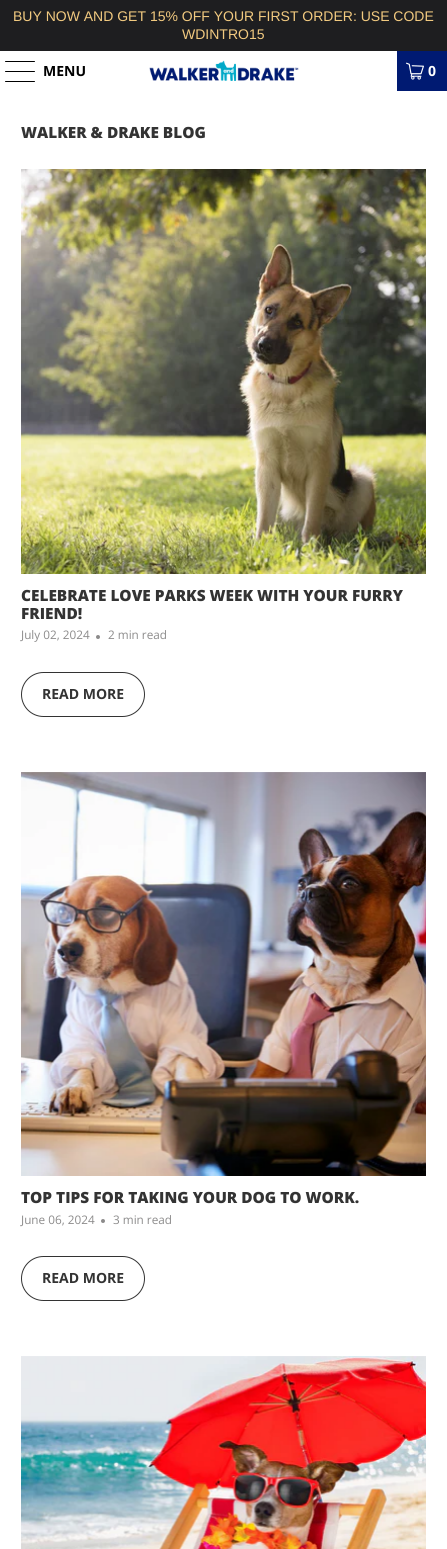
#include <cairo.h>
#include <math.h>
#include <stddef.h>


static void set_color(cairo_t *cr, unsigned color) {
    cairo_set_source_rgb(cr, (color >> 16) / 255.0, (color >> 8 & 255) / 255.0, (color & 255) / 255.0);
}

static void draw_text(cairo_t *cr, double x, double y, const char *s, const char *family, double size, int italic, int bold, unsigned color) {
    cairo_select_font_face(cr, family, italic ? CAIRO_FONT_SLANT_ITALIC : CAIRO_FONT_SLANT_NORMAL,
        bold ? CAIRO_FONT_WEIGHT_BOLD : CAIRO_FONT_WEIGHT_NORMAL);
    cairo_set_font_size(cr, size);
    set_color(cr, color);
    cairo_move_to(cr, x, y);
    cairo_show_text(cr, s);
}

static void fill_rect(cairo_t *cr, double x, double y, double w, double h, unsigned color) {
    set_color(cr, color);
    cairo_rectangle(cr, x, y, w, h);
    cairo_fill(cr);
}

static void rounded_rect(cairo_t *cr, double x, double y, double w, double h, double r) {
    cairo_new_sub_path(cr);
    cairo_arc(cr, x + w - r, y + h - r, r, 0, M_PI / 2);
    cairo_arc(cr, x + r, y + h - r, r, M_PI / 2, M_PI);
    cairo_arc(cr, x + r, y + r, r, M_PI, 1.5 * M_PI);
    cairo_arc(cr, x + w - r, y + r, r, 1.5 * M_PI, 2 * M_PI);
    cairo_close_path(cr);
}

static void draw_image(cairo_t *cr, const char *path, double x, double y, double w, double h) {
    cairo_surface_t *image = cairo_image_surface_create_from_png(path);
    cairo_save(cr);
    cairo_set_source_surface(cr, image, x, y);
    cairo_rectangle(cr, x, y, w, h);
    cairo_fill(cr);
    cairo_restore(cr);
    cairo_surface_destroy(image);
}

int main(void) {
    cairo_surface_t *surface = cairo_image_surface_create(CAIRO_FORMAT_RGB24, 447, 1549);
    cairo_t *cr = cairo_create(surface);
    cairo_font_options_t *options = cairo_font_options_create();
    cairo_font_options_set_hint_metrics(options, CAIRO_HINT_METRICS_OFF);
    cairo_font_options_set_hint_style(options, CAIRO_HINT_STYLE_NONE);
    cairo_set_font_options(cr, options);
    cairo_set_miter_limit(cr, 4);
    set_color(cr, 0xFFFFFF);
    cairo_paint(cr);
    fill_rect(cr, 0, 0, 447, 51, 0x1E1E20);
    draw_text(cr, 13, 21, "BUY NOW AND GET 15% OFF YOUR FIRST ORDER: USE CODE", "Liberation Sans", 14, 0, 0, 0xF2CA80);
    draw_text(cr, 182, 39, "WDINTRO15", "Liberation Sans", 14, 0, 0, 0xF2CA80);
    set_color(cr, 0x000000);
    rounded_rect(cr, 5, 61, 30, 1, 0.5);
    cairo_fill(cr);
    rounded_rect(cr, 5, 71, 30, 1, 0.5);
    cairo_fill(cr);
    rounded_rect(cr, 5, 81, 30, 1, 0.5);
    cairo_fill(cr);
    draw_text(cr, 43, 76, "MENU", "Open Sans", 14, 0, 1, 0x000000);
    draw_image(cr, "assets/img1.png", 149, 60, 150, 21);
    fill_rect(cr, 397, 51, 50, 40, 0x001A72);
    draw_image(cr, "assets/img2.png", 406, 62, 18, 18);
    draw_text(cr, 428, 76, "0", "Open Sans", 14, 0, 1, 0xFFFFFF);
    draw_text(cr, 21, 138, "WALKER & DRAKE BLOG", "Open Sans ExtraBold", 15.4, 0, 0, 0x333333);
    draw_image(cr, "assets/img3.png", 21, 169, 405, 405);
    draw_text(cr, 21, 601, "CELEBRATE LOVE PARKS WEEK WITH YOUR FURRY", "Open Sans ExtraBold", 15.4, 0, 0, 0x333333);
    draw_text(cr, 21, 619, "FRIEND!", "Open Sans ExtraBold", 15.4, 0, 0, 0x333333);
    draw_text(cr, 21, 639, "July 02, 2024", "Open Sans", 11.75, 0, 0, 0x8C8B8B);
    cairo_new_path(cr);
    cairo_arc(cr, 98, 637, 2, 0, 2 * M_PI);
    cairo_fill(cr);
    draw_text(cr, 108, 639, "2 min read", "Open Sans", 11.75, 0, 0, 0x8C8B8B);
    rounded_rect(cr, 21.5, 672.5, 123, 44, 22);
    set_color(cr, 0x333333);
    cairo_set_line_width(cr, 1);
    cairo_stroke(cr);
    draw_text(cr, 42, 699, "READ MORE", "Open Sans", 14, 0, 1, 0x333333);
    draw_image(cr, "assets/img4.png", 21, 772, 405, 404);
    draw_text(cr, 21, 1203, "TOP TIPS FOR TAKING YOUR DOG TO WORK.", "Open Sans ExtraBold", 15.4, 0, 0, 0x333333);
    draw_text(cr, 21, 1224, "June 06, 2024", "Open Sans", 11.75, 0, 0, 0x8C8B8B);
    cairo_new_path(cr);
    cairo_arc(cr, 103, 1221, 2, 0, 2 * M_PI);
    cairo_fill(cr);
    draw_text(cr, 113, 1224, "3 min read", "Open Sans", 11.75, 0, 0, 0x8C8B8B);
    rounded_rect(cr, 21.5, 1256.5, 123, 44, 22);
    set_color(cr, 0x333333);
    cairo_stroke(cr);
    draw_text(cr, 42, 1283, "READ MORE", "Open Sans", 14, 0, 1, 0x333333);
    draw_image(cr, "assets/img5.png", 21, 1356, 405, 193);
    cairo_surface_write_to_png(surface, "output.png");
    cairo_font_options_destroy(options);
    cairo_destroy(cr);
    cairo_surface_destroy(surface);
    return 0;
}
